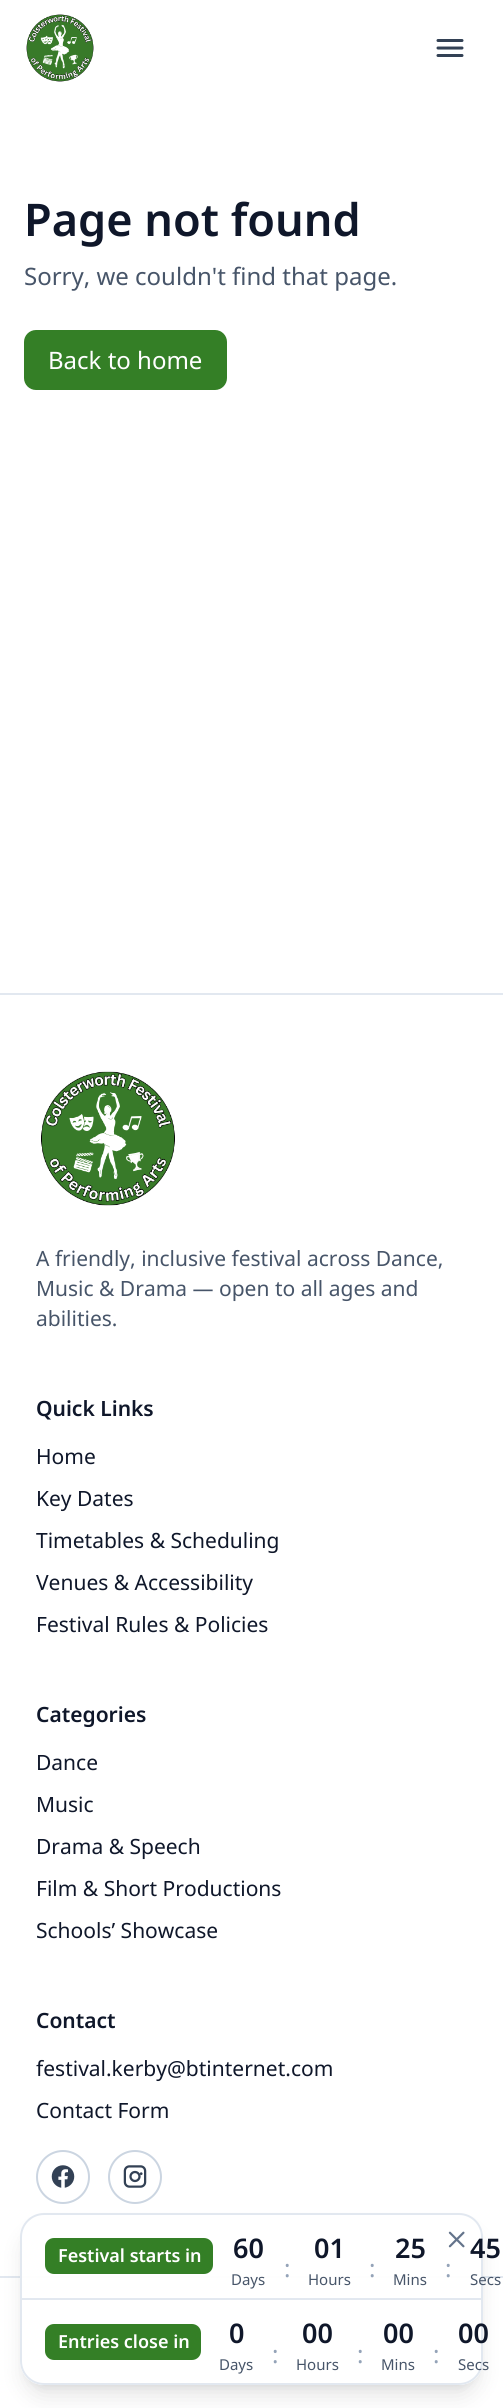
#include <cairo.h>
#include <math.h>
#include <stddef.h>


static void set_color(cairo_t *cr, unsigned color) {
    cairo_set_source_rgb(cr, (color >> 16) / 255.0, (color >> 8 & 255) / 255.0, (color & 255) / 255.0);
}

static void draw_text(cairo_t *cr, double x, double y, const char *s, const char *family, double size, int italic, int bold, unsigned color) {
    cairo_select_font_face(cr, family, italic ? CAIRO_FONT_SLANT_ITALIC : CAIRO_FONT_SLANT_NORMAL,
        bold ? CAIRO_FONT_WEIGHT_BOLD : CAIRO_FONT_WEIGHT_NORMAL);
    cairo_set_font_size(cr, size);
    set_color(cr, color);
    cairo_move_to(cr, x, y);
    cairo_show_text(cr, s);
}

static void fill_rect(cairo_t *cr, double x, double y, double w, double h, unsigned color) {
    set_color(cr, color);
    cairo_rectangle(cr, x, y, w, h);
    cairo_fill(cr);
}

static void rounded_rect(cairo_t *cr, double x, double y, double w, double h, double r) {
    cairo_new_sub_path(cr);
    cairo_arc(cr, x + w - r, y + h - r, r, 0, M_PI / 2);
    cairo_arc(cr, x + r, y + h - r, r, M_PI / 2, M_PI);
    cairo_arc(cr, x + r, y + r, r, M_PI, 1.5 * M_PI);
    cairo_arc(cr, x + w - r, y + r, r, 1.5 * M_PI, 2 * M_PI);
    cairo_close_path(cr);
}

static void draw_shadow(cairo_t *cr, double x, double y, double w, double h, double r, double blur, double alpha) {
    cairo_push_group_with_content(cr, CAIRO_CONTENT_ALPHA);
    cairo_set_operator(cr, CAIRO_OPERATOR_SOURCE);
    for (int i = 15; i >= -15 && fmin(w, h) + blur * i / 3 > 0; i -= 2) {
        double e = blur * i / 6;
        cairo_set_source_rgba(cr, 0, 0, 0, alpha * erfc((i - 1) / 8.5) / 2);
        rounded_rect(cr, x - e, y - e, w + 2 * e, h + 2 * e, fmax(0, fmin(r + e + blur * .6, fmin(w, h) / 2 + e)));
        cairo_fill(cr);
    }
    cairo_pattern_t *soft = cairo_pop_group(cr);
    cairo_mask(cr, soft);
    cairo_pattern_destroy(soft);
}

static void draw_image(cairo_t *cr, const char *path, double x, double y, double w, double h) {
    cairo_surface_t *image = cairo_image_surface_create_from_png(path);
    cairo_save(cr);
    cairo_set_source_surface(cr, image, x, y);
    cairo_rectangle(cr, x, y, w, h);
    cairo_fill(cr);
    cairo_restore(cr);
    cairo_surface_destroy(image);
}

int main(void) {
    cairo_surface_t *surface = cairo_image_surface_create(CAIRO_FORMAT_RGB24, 503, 2408);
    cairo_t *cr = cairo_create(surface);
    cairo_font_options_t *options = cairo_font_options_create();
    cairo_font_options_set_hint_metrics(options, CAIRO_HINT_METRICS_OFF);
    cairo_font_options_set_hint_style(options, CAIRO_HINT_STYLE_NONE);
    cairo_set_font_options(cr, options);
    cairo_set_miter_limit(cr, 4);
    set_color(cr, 0xFFFFFF);
    cairo_paint(cr);
    draw_image(cr, "assets/img1.png", 26, 14, 68, 68);
    cairo_new_path(cr);
    cairo_move_to(cr, 438, 40.5);
    cairo_line_to(cr, 462, 40.5);
    cairo_move_to(cr, 438, 48);
    cairo_line_to(cr, 462, 48);
    cairo_move_to(cr, 438, 55.5);
    cairo_line_to(cr, 462, 55.5);
    set_color(cr, 0x334155);
    cairo_set_line_width(cr, 3);
    cairo_set_line_cap(cr, CAIRO_LINE_CAP_ROUND);
    cairo_stroke(cr);
    draw_text(cr, 24, 236, "Page not found", "Noto Sans SemiBold", 45, 0, 0, 0x0F172A);
    draw_text(cr, 24, 285, "Sorry, we couldn't find that page.", "Noto Sans", 24, 0, 0, 0x475569);
    set_color(cr, 0x347F26);
    rounded_rect(cr, 24, 330, 203, 60, 12);
    cairo_fill(cr);
    draw_text(cr, 48, 369, "Back to home", "Noto Sans", 24, 0, 0, 0xFFFFFF);
    fill_rect(cr, 0, 993, 503, 2, 0xE2E8F0);
    draw_image(cr, "assets/img2.png", 41, 1071, 134, 135);
    draw_text(cr, 36, 1266, "A friendly, inclusive festival across Dance,", "Noto Sans", 21, 0, 0, 0x475569);
    draw_text(cr, 36, 1296, "Music & Drama — open to all ages and", "Noto Sans", 21, 0, 0, 0x475569);
    draw_text(cr, 36, 1326, "abilities.", "Noto Sans", 21, 0, 0, 0x475569);
    draw_text(cr, 36, 1416, "Quick Links", "Noto Sans SemiBold", 21, 0, 0, 0x0F172A);
    draw_text(cr, 36, 1464, "Home", "Noto Sans", 21, 0, 0, 0x0F172A);
    draw_text(cr, 36, 1506, "Key Dates", "Noto Sans", 21, 0, 0, 0x0F172A);
    draw_text(cr, 36, 1548, "Timetables & Scheduling", "Noto Sans", 21, 0, 0, 0x0F172A);
    draw_text(cr, 36, 1590, "Venues & Accessibility", "Noto Sans", 21, 0, 0, 0x0F172A);
    draw_text(cr, 36, 1632, "Festival Rules & Policies", "Noto Sans", 21, 0, 0, 0x0F172A);
    draw_text(cr, 36, 1722, "Categories", "Noto Sans SemiBold", 21, 0, 0, 0x0F172A);
    draw_text(cr, 36, 1770, "Dance", "Noto Sans", 21, 0, 0, 0x0F172A);
    draw_text(cr, 36, 1812, "Music", "Noto Sans", 21, 0, 0, 0x0F172A);
    draw_text(cr, 36, 1854, "Drama & Speech", "Noto Sans", 21, 0, 0, 0x0F172A);
    draw_text(cr, 36, 1896, "Film & Short Productions", "Noto Sans", 21, 0, 0, 0x0F172A);
    draw_text(cr, 36, 1938, "Schools’ Showcase", "Noto Sans", 21, 0, 0, 0x0F172A);
    draw_text(cr, 36, 2028, "Contact", "Noto Sans SemiBold", 21, 0, 0, 0x0F172A);
    draw_text(cr, 36, 2076, "festival.kerby@btinternet.com", "Noto Sans", 21, 0, 0, 0x0F172A);
    draw_text(cr, 36, 2118, "Contact Form", "Noto Sans", 21, 0, 0, 0x0F172A);
    cairo_new_path(cr);
    cairo_arc(cr, 63, 2177, 26, 0, 2 * M_PI);
    set_color(cr, 0xCBD5E1);
    cairo_set_line_width(cr, 2);
    cairo_set_line_cap(cr, CAIRO_LINE_CAP_BUTT);
    cairo_stroke(cr);
    draw_image(cr, "assets/img3.png", 51, 2165, 24, 23);
    cairo_arc(cr, 135, 2177, 26, 0, 2 * M_PI);
    cairo_stroke(cr);
    draw_image(cr, "assets/img4.png", 123, 2165, 24, 23);
    fill_rect(cr, 0, 2276, 503, 2, 0xE2E8F0);
    cairo_save(cr);
    cairo_set_fill_rule(cr, CAIRO_FILL_RULE_EVEN_ODD);
    cairo_new_path(cr);
    cairo_move_to(cr, 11, 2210);
    cairo_line_to(cr, 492, 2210);
    cairo_line_to(cr, 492, 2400);
    cairo_line_to(cr, 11, 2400);
    cairo_close_path(cr);
    cairo_move_to(cr, 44, 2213);
    cairo_line_to(cr, 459, 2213);
    cairo_curve_to(cr, 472.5, 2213, 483, 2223.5, 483, 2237);
    cairo_line_to(cr, 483, 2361);
    cairo_curve_to(cr, 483, 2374.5, 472.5, 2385, 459, 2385);
    cairo_line_to(cr, 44, 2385);
    cairo_curve_to(cr, 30.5, 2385, 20, 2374.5, 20, 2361);
    cairo_line_to(cr, 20, 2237);
    cairo_curve_to(cr, 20, 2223.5, 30.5, 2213, 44, 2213);
    cairo_close_path(cr);
    cairo_clip(cr);
    set_color(cr, 0x000000);
    draw_shadow(cr, 26, 2225, 451, 160, 18, 4.5, 0.1);
    cairo_restore(cr);
    cairo_save(cr);
    cairo_set_fill_rule(cr, CAIRO_FILL_RULE_EVEN_ODD);
    cairo_new_path(cr);
    cairo_move_to(cr, 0, 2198);
    cairo_line_to(cr, 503, 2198);
    cairo_line_to(cr, 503, 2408);
    cairo_line_to(cr, 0, 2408);
    cairo_close_path(cr);
    cairo_move_to(cr, 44, 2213);
    cairo_line_to(cr, 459, 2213);
    cairo_curve_to(cr, 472.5, 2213, 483, 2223.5, 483, 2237);
    cairo_line_to(cr, 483, 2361);
    cairo_curve_to(cr, 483, 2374.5, 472.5, 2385, 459, 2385);
    cairo_line_to(cr, 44, 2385);
    cairo_curve_to(cr, 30.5, 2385, 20, 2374.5, 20, 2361);
    cairo_line_to(cr, 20, 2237);
    cairo_curve_to(cr, 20, 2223.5, 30.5, 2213, 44, 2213);
    cairo_close_path(cr);
    cairo_clip(cr);
    set_color(cr, 0x000000);
    draw_shadow(cr, 24, 2232, 455, 164, 20, 11, 0.1);
    cairo_restore(cr);
    cairo_set_source_rgba(cr, 1, 1, 1, 0.95);
    rounded_rect(cr, 21, 2214, 461, 170, 23);
    cairo_fill_preserve(cr);
    set_color(cr, 0xE2E8F0);
    cairo_stroke(cr);
    draw_image(cr, "assets/img5.png", 448, 2231, 17, 17);
    set_color(cr, 0x347F26);
    rounded_rect(cr, 45, 2238, 168, 36, 9);
    cairo_fill(cr);
    draw_text(cr, 58, 2262, "Festival starts in", "Noto Sans SemiBold", 18, 0, 0, 0xFFFFFF);
    draw_text(cr, 233, 2258, "60", "Noto Sans SemiBold", 27, 0, 0, 0x0F172A);
    draw_text(cr, 231, 2285, "Days", "Noto Sans", 15, 0, 0, 0x475569);
    draw_text(cr, 284, 2277, ":", "Noto Sans", 24, 0, 0, 0x94A3B8);
    draw_text(cr, 314, 2258, "01", "Noto Sans SemiBold", 27, 0, 0, 0x0F172A);
    draw_text(cr, 308, 2285, "Hours", "Noto Sans", 15, 0, 0, 0x475569);
    draw_text(cr, 369, 2277, ":", "Noto Sans", 24, 0, 0, 0x94A3B8);
    draw_text(cr, 395, 2258, "25", "Noto Sans SemiBold", 27, 0, 0, 0x0F172A);
    draw_text(cr, 393, 2285, "Mins", "Noto Sans", 15, 0, 0, 0x475569);
    draw_text(cr, 445, 2277, ":", "Noto Sans", 24, 0, 0, 0x94A3B8);
    draw_text(cr, 470, 2258, "45", "Noto Sans SemiBold", 27, 0, 0, 0x0F172A);
    draw_text(cr, 470, 2285, "Secs", "Noto Sans", 15, 0, 0, 0x475569);
    fill_rect(cr, 21, 2298, 461, 2, 0xE2E8F0);
    set_color(cr, 0x347F26);
    rounded_rect(cr, 45, 2324, 156, 36, 9);
    cairo_fill(cr);
    draw_text(cr, 58, 2348, "Entries close in", "Noto Sans SemiBold", 18, 0, 0, 0xFFFFFF);
    draw_text(cr, 229, 2343, "0", "Noto Sans SemiBold", 27, 0, 0, 0x0F172A);
    draw_text(cr, 219, 2370, "Days", "Noto Sans", 15, 0, 0, 0x475569);
    draw_text(cr, 272, 2363, ":", "Noto Sans", 24, 0, 0, 0x94A3B8);
    draw_text(cr, 302, 2343, "00", "Noto Sans SemiBold", 27, 0, 0, 0x0F172A);
    draw_text(cr, 296, 2370, "Hours", "Noto Sans", 15, 0, 0, 0x475569);
    draw_text(cr, 357, 2363, ":", "Noto Sans", 24, 0, 0, 0x94A3B8);
    draw_text(cr, 383, 2343, "00", "Noto Sans SemiBold", 27, 0, 0, 0x0F172A);
    draw_text(cr, 381, 2370, "Mins", "Noto Sans", 15, 0, 0, 0x475569);
    draw_text(cr, 433, 2363, ":", "Noto Sans", 24, 0, 0, 0x94A3B8);
    draw_text(cr, 458, 2343, "00", "Noto Sans SemiBold", 27, 0, 0, 0x0F172A);
    draw_text(cr, 458, 2370, "Secs", "Noto Sans", 15, 0, 0, 0x475569);
    cairo_surface_write_to_png(surface, "output.png");
    cairo_font_options_destroy(options);
    cairo_destroy(cr);
    cairo_surface_destroy(surface);
    return 0;
}
